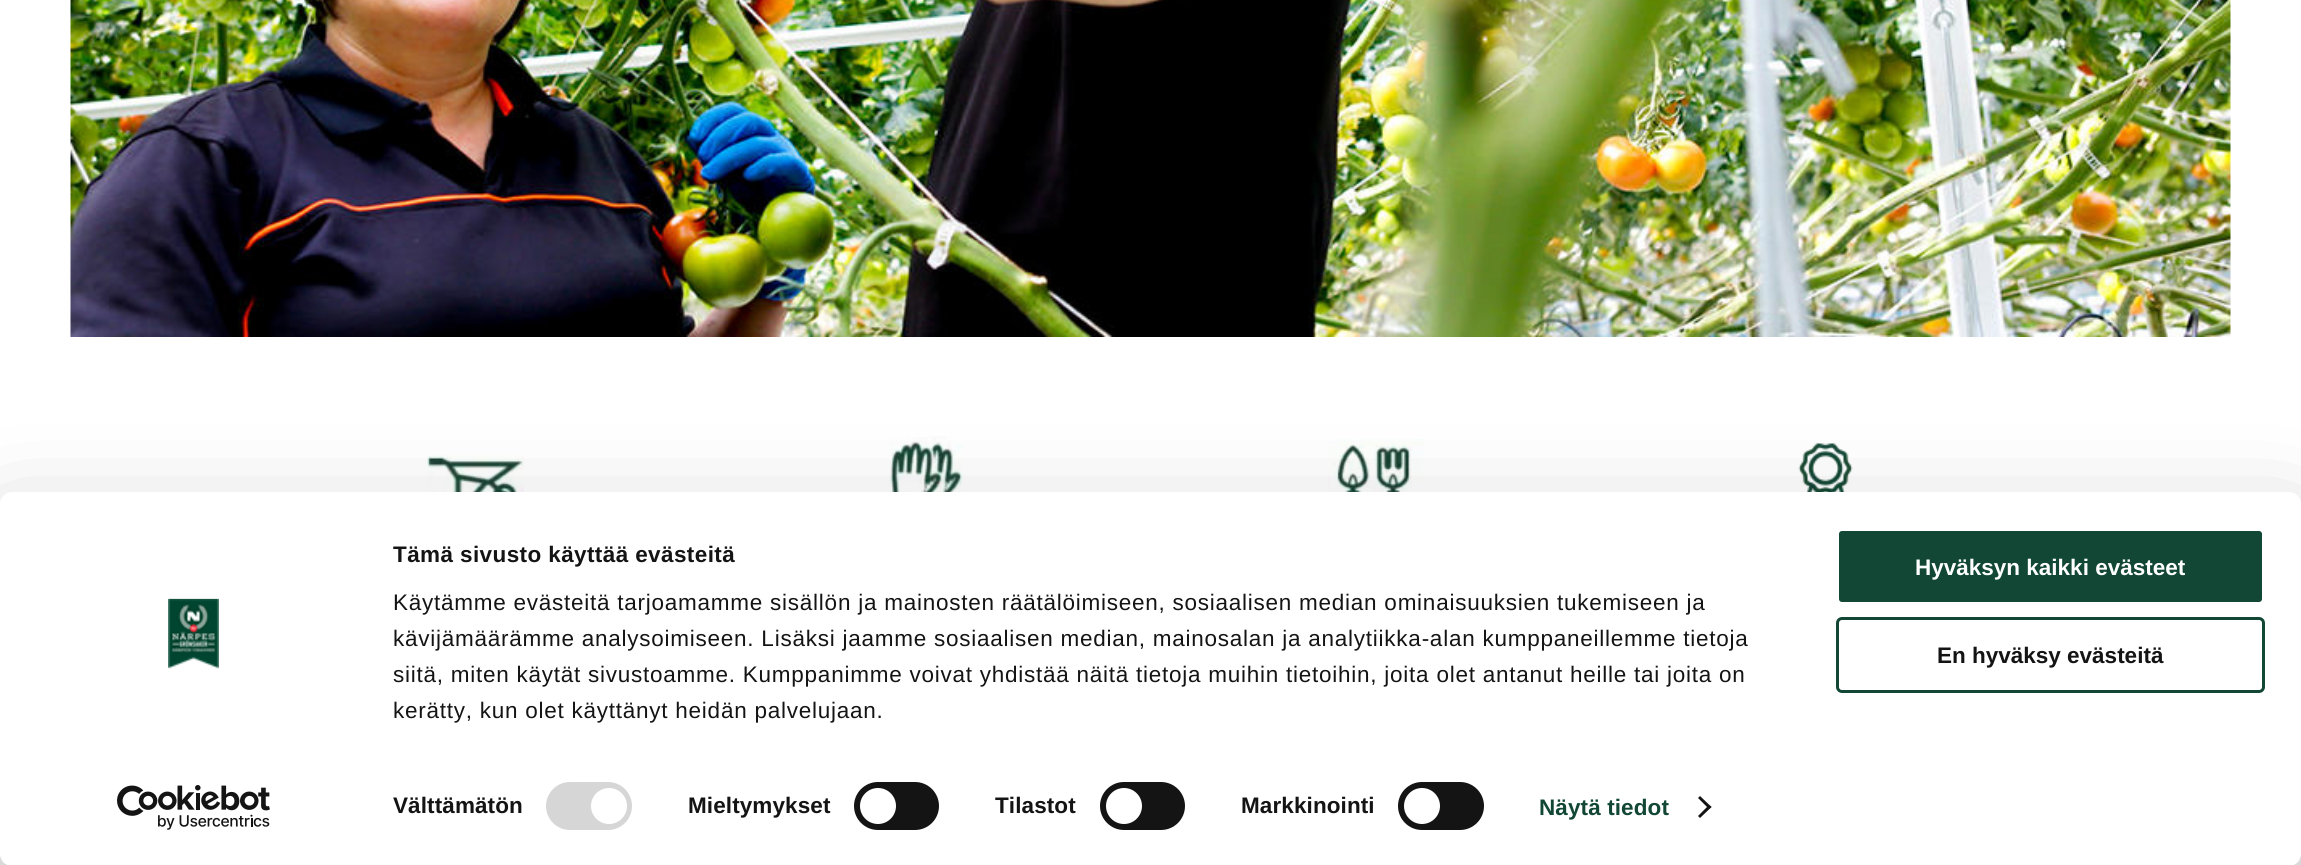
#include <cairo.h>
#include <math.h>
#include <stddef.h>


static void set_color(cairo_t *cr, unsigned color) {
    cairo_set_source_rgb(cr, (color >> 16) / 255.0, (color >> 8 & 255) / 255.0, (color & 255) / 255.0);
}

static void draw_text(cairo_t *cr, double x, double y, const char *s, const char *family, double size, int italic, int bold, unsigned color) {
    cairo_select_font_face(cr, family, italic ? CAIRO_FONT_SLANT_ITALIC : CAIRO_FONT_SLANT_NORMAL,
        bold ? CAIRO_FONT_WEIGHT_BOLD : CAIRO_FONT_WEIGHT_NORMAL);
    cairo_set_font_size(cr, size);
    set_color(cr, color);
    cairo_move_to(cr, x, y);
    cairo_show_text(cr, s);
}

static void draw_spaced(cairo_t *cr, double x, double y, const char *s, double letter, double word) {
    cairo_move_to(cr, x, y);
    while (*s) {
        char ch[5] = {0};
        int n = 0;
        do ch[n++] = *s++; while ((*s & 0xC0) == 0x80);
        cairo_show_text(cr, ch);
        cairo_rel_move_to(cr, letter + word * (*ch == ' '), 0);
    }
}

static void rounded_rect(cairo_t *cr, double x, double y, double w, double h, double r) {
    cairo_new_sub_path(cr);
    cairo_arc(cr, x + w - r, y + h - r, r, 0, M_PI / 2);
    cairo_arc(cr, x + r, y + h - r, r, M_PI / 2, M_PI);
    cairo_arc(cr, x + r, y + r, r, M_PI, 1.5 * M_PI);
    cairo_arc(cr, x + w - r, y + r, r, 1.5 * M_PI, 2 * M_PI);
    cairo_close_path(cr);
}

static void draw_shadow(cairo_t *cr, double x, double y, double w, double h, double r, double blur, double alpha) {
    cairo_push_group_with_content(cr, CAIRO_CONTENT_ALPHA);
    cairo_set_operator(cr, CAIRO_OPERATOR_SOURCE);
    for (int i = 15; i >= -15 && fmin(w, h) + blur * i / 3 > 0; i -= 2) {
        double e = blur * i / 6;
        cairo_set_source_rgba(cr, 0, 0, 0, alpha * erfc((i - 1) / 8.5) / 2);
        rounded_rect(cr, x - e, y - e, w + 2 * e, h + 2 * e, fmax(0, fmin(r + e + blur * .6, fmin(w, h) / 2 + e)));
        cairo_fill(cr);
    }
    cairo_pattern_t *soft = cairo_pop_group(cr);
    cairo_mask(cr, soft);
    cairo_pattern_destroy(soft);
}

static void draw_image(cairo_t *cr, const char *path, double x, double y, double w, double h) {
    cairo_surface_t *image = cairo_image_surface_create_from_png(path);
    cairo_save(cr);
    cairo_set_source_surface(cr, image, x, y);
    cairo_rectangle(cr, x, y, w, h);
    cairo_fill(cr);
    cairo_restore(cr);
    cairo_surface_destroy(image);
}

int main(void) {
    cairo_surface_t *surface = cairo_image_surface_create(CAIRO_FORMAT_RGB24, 2301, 865);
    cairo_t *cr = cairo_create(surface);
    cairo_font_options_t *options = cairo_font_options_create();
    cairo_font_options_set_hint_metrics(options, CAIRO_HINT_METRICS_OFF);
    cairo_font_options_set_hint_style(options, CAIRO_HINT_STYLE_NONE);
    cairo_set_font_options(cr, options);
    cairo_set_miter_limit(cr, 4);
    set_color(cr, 0xFFFFFF);
    cairo_paint(cr);
    draw_image(cr, "assets/img1.png", 70, 0, 2161, 337);
    draw_image(cr, "assets/img2.png", 427, 455, 97, 37);
    draw_image(cr, "assets/img3.png", 889, 436, 74, 56);
    draw_image(cr, "assets/img4.png", 1328, 439, 96, 53);
    draw_image(cr, "assets/img5.png", 1798, 443, 55, 49);
    set_color(cr, 0x000000);
    draw_shadow(cr, 0, 537, 2301, 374, 12, 52.5, 0.3);
    set_color(cr, 0xFFFFFF);
    rounded_rect(cr, 0, 492, 2301, 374, 12);
    cairo_fill(cr);
    draw_image(cr, "assets/img6.png", 168, 598, 51, 71);
    draw_image(cr, "assets/img7.png", 117, 785, 153, 45);
    cairo_select_font_face(cr, "Liberation Sans", CAIRO_FONT_SLANT_NORMAL, CAIRO_FONT_WEIGHT_BOLD);
    cairo_set_font_size(cr, 22.5);
    set_color(cr, 0x141414);
    draw_spaced(cr, 393, 562, "Tämä sivusto käyttää evästeitä", 0.4, 0);
    cairo_select_font_face(cr, "Liberation Sans", CAIRO_FONT_SLANT_NORMAL, CAIRO_FONT_WEIGHT_NORMAL);
    draw_spaced(cr, 393, 610, "Käytämme evästeitä tarjoamamme sisällön ja mainosten räätälöimiseen, sosiaalisen median ominaisuuksien tukemiseen ja", 0.75, 0);
    draw_spaced(cr, 393, 646, "kävijämäärämme analysoimiseen. Lisäksi jaamme sosiaalisen median, mainosalan ja analytiikka-alan kumppaneillemme tietoja", 0.75, 0);
    draw_spaced(cr, 393, 682, "siitä, miten käytät sivustoamme. Kumppanimme voivat yhdistää näitä tietoja muihin tietoihin, joita olet antanut heille tai joita on", 0.75, 0);
    draw_spaced(cr, 393, 718, "kerätty, kun olet käyttänyt heidän palvelujaan.", 0.75, 0);
    cairo_select_font_face(cr, "Liberation Sans", CAIRO_FONT_SLANT_NORMAL, CAIRO_FONT_WEIGHT_BOLD);
    draw_spaced(cr, 393, 813, "Välttämätön", 0.1, 0);
    set_color(cr, 0xD6D6D6);
    rounded_rect(cr, 546, 782, 86, 48, 24);
    cairo_fill(cr);
    set_color(cr, 0xFFFFFF);
    cairo_arc(cr, 609, 806, 18, 0, 2 * M_PI);
    cairo_fill(cr);
    set_color(cr, 0x141414);
    draw_spaced(cr, 688, 813, "Mieltymykset", 0.1, 0);
    rounded_rect(cr, 854, 782, 85, 48, 24);
    cairo_fill(cr);
    set_color(cr, 0xFFFFFF);
    cairo_arc(cr, 878, 806, 18, 0, 2 * M_PI);
    cairo_fill(cr);
    set_color(cr, 0x141414);
    draw_spaced(cr, 995, 813, "Tilastot", 0.1, 0);
    rounded_rect(cr, 1100, 782, 85, 48, 24);
    cairo_fill(cr);
    set_color(cr, 0xFFFFFF);
    cairo_arc(cr, 1124, 806, 18, 0, 2 * M_PI);
    cairo_fill(cr);
    set_color(cr, 0x141414);
    draw_spaced(cr, 1241, 813, "Markkinointi", 0.1, 0);
    rounded_rect(cr, 1398, 782, 86, 48, 24);
    cairo_fill(cr);
    set_color(cr, 0xFFFFFF);
    cairo_arc(cr, 1422, 806, 18, 0, 2 * M_PI);
    cairo_fill(cr);
    set_color(cr, 0x114734);
    draw_spaced(cr, 1539, 815, "Näytä tiedot", 0.1, 0);
    set_color(cr, 0x141414);
    cairo_new_path(cr);
    cairo_move_to(cr, 1700, 796);
    cairo_line_to(cr, 1711.5, 807);
    cairo_line_to(cr, 1709, 809);
    cairo_line_to(cr, 1698, 798);
    cairo_close_path(cr);
    cairo_fill(cr);
    cairo_new_path(cr);
    cairo_move_to(cr, 1709, 805);
    cairo_line_to(cr, 1711.5, 807);
    cairo_line_to(cr, 1700, 818);
    cairo_line_to(cr, 1698, 816);
    cairo_close_path(cr);
    cairo_fill(cr);
    set_color(cr, 0x114734);
    rounded_rect(cr, 1837.5, 529.5, 426, 74, 4.5);
    cairo_fill_preserve(cr);
    set_color(cr, 0xFFFFFF);
    cairo_set_line_width(cr, 3);
    cairo_stroke(cr);
    draw_text(cr, 1915, 575, "Hyväksyn kaikki evästeet", "Liberation Sans", 22.5, 0, 1, 0xFFFFFF);
    rounded_rect(cr, 1837.5, 618.5, 426, 73, 4.5);
    set_color(cr, 0x114734);
    cairo_stroke(cr);
    draw_text(cr, 1937, 663, "En hyväksy evästeitä", "Liberation Sans", 22.5, 0, 1, 0x141414);
    cairo_surface_write_to_png(surface, "output.png");
    cairo_font_options_destroy(options);
    cairo_destroy(cr);
    cairo_surface_destroy(surface);
    return 0;
}
